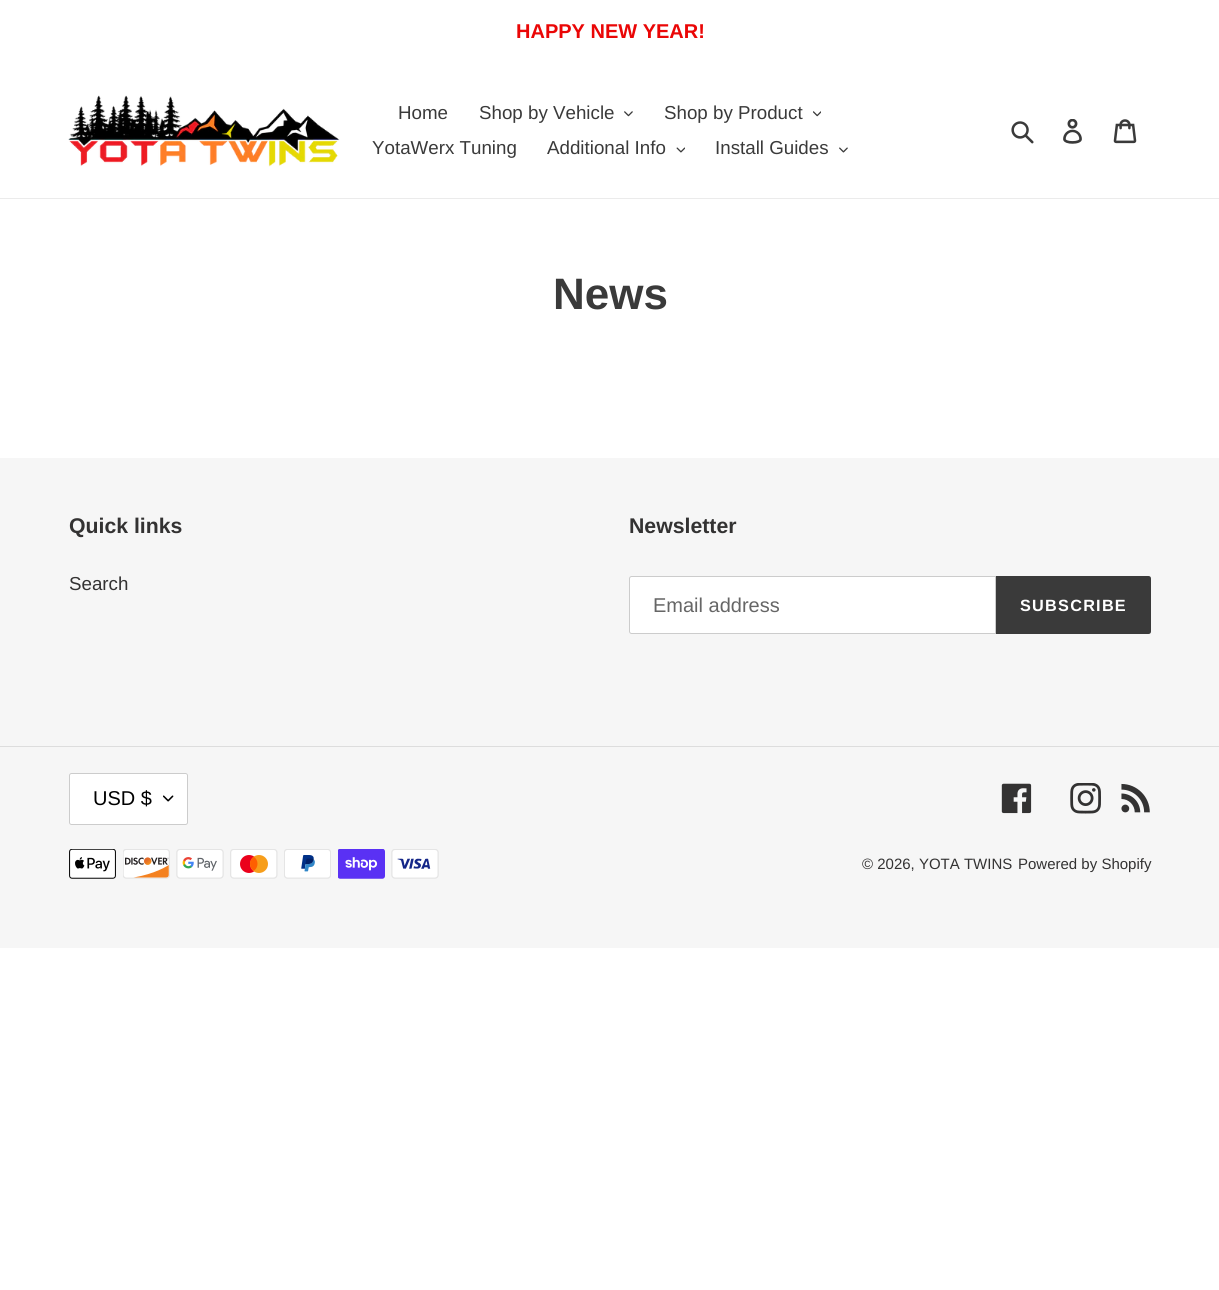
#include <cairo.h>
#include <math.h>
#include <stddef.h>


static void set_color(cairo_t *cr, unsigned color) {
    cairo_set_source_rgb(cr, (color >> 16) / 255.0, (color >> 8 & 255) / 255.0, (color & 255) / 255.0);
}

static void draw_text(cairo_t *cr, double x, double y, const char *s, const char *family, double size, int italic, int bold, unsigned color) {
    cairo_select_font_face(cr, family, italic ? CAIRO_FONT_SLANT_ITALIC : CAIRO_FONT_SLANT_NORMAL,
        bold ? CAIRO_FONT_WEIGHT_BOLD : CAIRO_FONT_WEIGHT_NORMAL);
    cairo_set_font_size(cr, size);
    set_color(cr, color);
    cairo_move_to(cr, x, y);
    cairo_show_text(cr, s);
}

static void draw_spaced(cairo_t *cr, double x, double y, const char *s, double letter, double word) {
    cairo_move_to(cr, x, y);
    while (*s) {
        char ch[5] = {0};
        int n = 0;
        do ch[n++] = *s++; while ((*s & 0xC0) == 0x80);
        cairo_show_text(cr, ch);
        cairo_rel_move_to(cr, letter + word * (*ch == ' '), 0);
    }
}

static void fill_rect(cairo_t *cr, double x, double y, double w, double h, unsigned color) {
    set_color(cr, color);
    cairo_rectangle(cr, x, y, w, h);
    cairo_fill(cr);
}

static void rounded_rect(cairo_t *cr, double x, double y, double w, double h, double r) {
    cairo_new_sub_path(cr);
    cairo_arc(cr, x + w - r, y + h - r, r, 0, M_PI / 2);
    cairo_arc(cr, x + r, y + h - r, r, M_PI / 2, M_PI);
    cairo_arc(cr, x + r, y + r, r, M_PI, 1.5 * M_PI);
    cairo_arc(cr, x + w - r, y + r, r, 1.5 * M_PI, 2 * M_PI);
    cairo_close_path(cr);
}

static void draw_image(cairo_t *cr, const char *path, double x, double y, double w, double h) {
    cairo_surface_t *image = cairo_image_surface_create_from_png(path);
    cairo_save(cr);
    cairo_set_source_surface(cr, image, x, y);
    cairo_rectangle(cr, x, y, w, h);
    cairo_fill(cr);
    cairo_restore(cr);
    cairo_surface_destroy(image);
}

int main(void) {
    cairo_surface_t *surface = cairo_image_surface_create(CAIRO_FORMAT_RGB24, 1219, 1290);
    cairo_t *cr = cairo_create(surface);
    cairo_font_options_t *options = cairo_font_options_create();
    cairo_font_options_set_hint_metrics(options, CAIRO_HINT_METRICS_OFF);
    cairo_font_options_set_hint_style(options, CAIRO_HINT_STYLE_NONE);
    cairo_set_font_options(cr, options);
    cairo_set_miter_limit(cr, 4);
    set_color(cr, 0xFFFFFF);
    cairo_paint(cr);
    draw_text(cr, 516, 38, "HAPPY NEW YEAR!", "Liberation Sans", 20, 0, 1, 0xEA0606);
    fill_rect(cr, 0, 198, 1219, 1, 0xEBEBEB);
    draw_image(cr, "assets/img1.png", 68, 95, 272, 72);
    draw_text(cr, 398, 119, "Home", "Liberation Sans", 18.75, 0, 0, 0x3A3A3A);
    draw_text(cr, 479, 119, "Shop by Vehicle", "Liberation Sans", 18.75, 0, 0, 0x3A3A3A);
    draw_image(cr, "assets/img2.png", 624, 111, 9, 6);
    draw_text(cr, 664, 119, "Shop by Product", "Liberation Sans", 18.75, 0, 0, 0x3A3A3A);
    draw_image(cr, "assets/img3.png", 813, 111, 8, 6);
    draw_text(cr, 372, 154, "YotaWerx Tuning", "Liberation Sans", 18.75, 0, 0, 0x3A3A3A);
    draw_text(cr, 547, 154, "Additional Info", "Liberation Sans", 18.75, 0, 0, 0x3A3A3A);
    draw_image(cr, "assets/img4.png", 676, 147, 9, 6);
    draw_text(cr, 715, 154, "Install Guides", "Liberation Sans", 18.75, 0, 0, 0x3A3A3A);
    draw_image(cr, "assets/img5.png", 839, 147, 9, 6);
    draw_image(cr, "assets/img6.png", 1011, 121, 23, 23);
    draw_image(cr, "assets/img7.png", 1063, 119, 19, 25);
    draw_image(cr, "assets/img8.png", 1113, 119, 24, 25);
    draw_text(cr, 553, 309, "News", "Liberation Sans", 44, 0, 1, 0x3A3A3A);
    fill_rect(cr, 0, 458, 1219, 490, 0xF6F6F6);
    draw_text(cr, 69, 533, "Quick links", "Liberation Sans", 21.25, 0, 1, 0x333232);
    draw_text(cr, 69, 590, "Search", "Liberation Sans", 18.75, 0, 0, 0x333232);
    draw_text(cr, 629, 533, "Newsletter", "Liberation Sans", 21.25, 0, 1, 0x333232);
    set_color(cr, 0xFFFFFF);
    cairo_new_path(cr);
    cairo_move_to(cr, 631.5, 576.5);
    cairo_line_to(cr, 995.5, 576.5);
    cairo_line_to(cr, 995.5, 633.5);
    cairo_line_to(cr, 631.5, 633.5);
    cairo_curve_to(cr, 630.5, 633.5, 629.5, 632.5, 629.5, 631.5);
    cairo_line_to(cr, 629.5, 578.5);
    cairo_curve_to(cr, 629.5, 577.5, 630.5, 576.5, 631.5, 576.5);
    cairo_close_path(cr);
    cairo_fill_preserve(cr);
    set_color(cr, 0xCCCCCC);
    cairo_set_line_width(cr, 1);
    cairo_stroke(cr);
    draw_text(cr, 653, 612, "Email address", "Liberation Sans", 20, 0, 0, 0x666666);
    set_color(cr, 0x3A3A3A);
    cairo_new_path(cr);
    cairo_move_to(cr, 996, 576);
    cairo_line_to(cr, 1148.5, 576);
    cairo_curve_to(cr, 1150, 576, 1151, 577, 1151, 578.5);
    cairo_line_to(cr, 1151, 631.5);
    cairo_curve_to(cr, 1151, 633, 1150, 634, 1148.5, 634);
    cairo_line_to(cr, 996, 634);
    cairo_close_path(cr);
    cairo_fill(cr);
    cairo_select_font_face(cr, "Liberation Sans", CAIRO_FONT_SLANT_NORMAL, CAIRO_FONT_WEIGHT_BOLD);
    cairo_set_font_size(cr, 16.25);
    set_color(cr, 0xFFFFFF);
    draw_spaced(cr, 1020, 611, "SUBSCRIBE", 1.25, 0);
    fill_rect(cr, 0, 746, 1219, 1, 0xDDDDDD);
    set_color(cr, 0xFFFFFF);
    rounded_rect(cr, 69, 773, 119, 52, 2.5);
    cairo_fill(cr);
    draw_image(cr, "assets/img9.png", 163, 795, 11, 7);
    rounded_rect(cr, 69.5, 773.5, 118, 51, 2);
    set_color(cr, 0xCCCCCC);
    cairo_stroke(cr);
    draw_text(cr, 93, 805, "USD $", "Liberation Sans", 20, 0, 0, 0x000000);
    draw_image(cr, "assets/img10.png", 1001, 783, 31, 31);
    draw_image(cr, "assets/img11.png", 1070, 783, 31, 31);
    draw_image(cr, "assets/img12.png", 1121, 783, 29, 30);
    draw_image(cr, "assets/img13.png", 69, 849, 47, 30);
    draw_image(cr, "assets/img14.png", 123, 849, 47, 30);
    draw_image(cr, "assets/img15.png", 176, 849, 48, 30);
    draw_image(cr, "assets/img16.png", 230, 849, 48, 30);
    draw_image(cr, "assets/img17.png", 284, 849, 47, 30);
    draw_image(cr, "assets/img18.png", 338, 849, 47, 30);
    draw_image(cr, "assets/img19.png", 391, 849, 48, 30);
    draw_text(cr, 862, 869, "© 2026, YOTA TWINS", "Liberation Sans", 15, 0, 0, 0x333232);
    draw_text(cr, 1018, 869, "Powered by Shopify", "Liberation Sans", 15, 0, 0, 0x333232);
    cairo_surface_write_to_png(surface, "output.png");
    cairo_font_options_destroy(options);
    cairo_destroy(cr);
    cairo_surface_destroy(surface);
    return 0;
}
